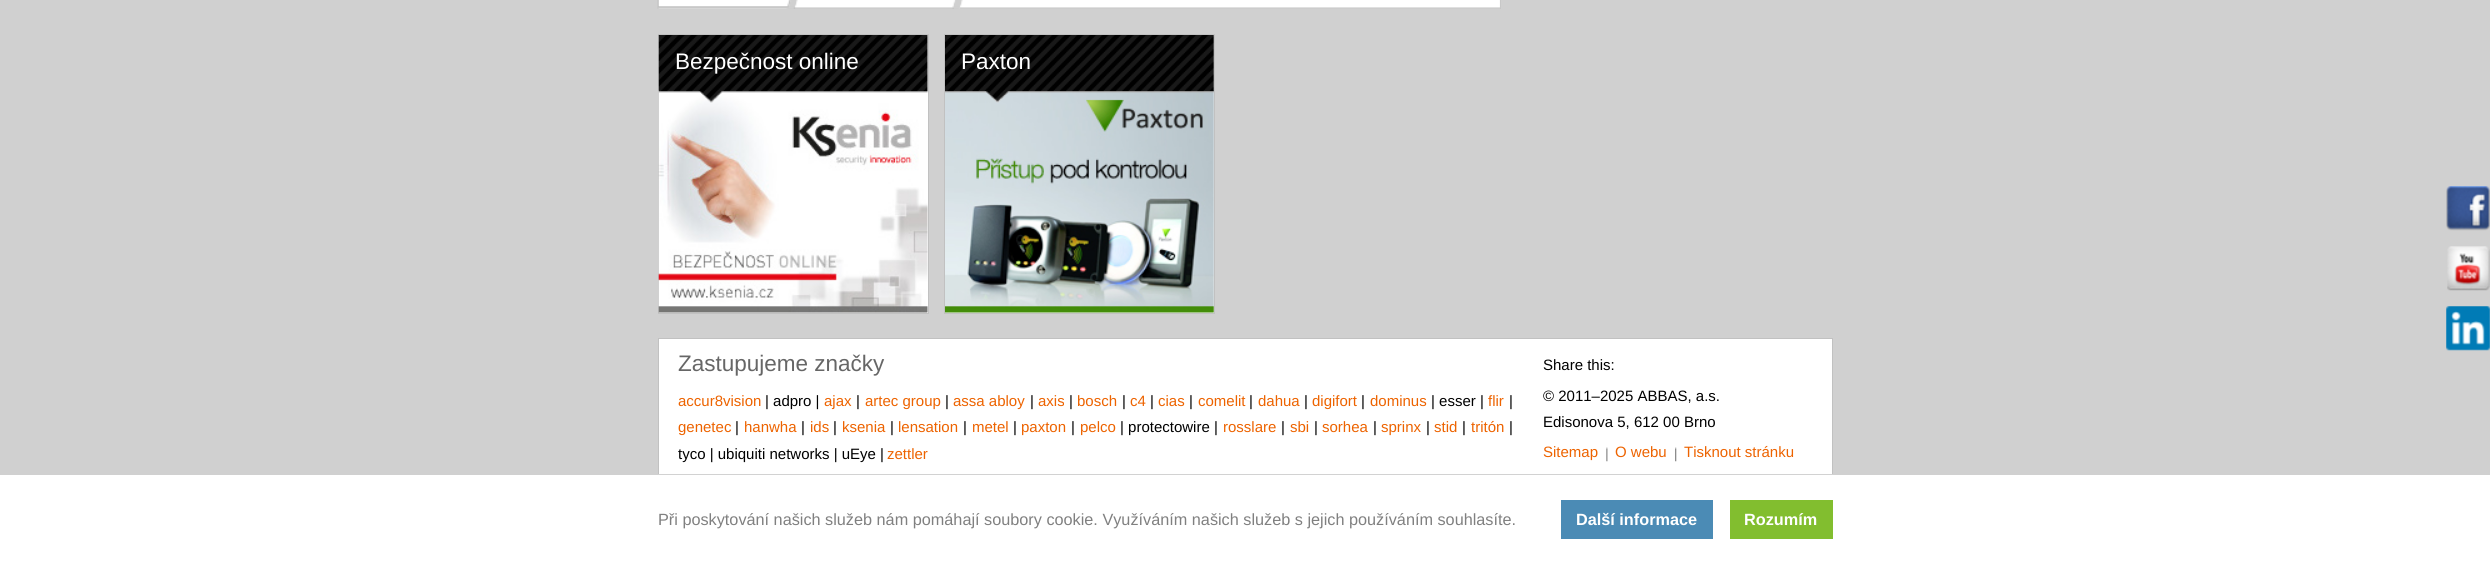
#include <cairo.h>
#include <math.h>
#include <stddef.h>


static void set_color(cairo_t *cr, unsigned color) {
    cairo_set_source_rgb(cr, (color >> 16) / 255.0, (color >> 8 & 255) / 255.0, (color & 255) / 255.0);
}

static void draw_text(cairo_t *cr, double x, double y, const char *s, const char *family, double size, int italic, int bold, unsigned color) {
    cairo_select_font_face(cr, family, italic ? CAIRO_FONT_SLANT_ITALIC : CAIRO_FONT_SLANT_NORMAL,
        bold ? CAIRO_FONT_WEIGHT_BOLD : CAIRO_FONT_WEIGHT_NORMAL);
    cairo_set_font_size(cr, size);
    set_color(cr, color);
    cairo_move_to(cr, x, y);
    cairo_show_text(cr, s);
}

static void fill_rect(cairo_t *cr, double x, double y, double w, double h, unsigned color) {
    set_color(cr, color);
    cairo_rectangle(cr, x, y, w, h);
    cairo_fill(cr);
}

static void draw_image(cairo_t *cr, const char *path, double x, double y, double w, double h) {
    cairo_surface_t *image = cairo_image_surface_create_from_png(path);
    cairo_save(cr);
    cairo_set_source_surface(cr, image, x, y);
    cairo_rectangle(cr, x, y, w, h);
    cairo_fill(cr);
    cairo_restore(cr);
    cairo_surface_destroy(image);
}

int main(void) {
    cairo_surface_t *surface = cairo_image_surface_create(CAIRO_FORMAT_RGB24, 2490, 565);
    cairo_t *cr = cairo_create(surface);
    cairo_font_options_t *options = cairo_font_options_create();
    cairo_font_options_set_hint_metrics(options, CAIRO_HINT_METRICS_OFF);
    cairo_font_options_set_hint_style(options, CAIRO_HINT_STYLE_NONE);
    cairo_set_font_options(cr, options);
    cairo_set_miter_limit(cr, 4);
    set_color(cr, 0xD0D0D0);
    cairo_paint(cr);
    cairo_rectangle(cr, 658.5, -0.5, 842, 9);
    set_color(cr, 0xC1C1C1);
    cairo_set_line_width(cr, 1);
    cairo_stroke(cr);
    draw_image(cr, "assets/img1.png", 657, 0, 844, 9);
    draw_image(cr, "assets/img2.png", 658, 6, 842, 3);
    set_color(cr, 0xFFFFFF);
    cairo_rectangle(cr, 658.5, 34.5, 270, 279);
    cairo_fill_preserve(cr);
    set_color(cr, 0xC1C1C1);
    cairo_stroke(cr);
    draw_image(cr, "assets/img4.png", 658, 90, 270, 223);
    draw_image(cr, "assets/img3.png", 658, 35, 270, 68);
    draw_text(cr, 675, 69, "Bezpečnost online", "Liberation Sans", 22.5, 0, 0, 0xFFFFFF);
    cairo_rectangle(cr, 944.5, 34.5, 270, 279);
    cairo_fill_preserve(cr);
    set_color(cr, 0xC1C1C1);
    cairo_stroke(cr);
    draw_image(cr, "assets/img6.png", 945, 90, 269, 223);
    draw_image(cr, "assets/img5.png", 945, 35, 269, 68);
    draw_text(cr, 961, 69, "Paxton", "Liberation Sans", 22.5, 0, 0, 0xFFFFFF);
    draw_image(cr, "assets/img7.png", 2446, 186, 44, 45);
    draw_image(cr, "assets/img8.png", 2447, 246, 43, 45);
    draw_image(cr, "assets/img9.png", 2446, 306, 44, 45);
    fill_rect(cr, 659, 339, 1173, 135, 0xFFFFFF);
    cairo_rectangle(cr, 658.5, 338.5, 1174, 189);
    set_color(cr, 0xC1C1C1);
    cairo_stroke(cr);
    draw_text(cr, 678, 371, "Zastupujeme značky", "Liberation Sans", 22.5, 0, 0, 0x666666);
    draw_text(cr, 678, 406, "accur8vision", "Liberation Sans", 15, 0, 0, 0xED6300);
    draw_text(cr, 765, 406, "| adpro |", "Liberation Sans", 15, 0, 0, 0x000000);
    draw_text(cr, 824, 406, "ajax", "Liberation Sans", 15, 0, 0, 0xED6300);
    draw_text(cr, 856, 406, "|", "Liberation Sans", 15, 0, 0, 0x000000);
    draw_text(cr, 865, 406, "artec group", "Liberation Sans", 15, 0, 0, 0xED6300);
    draw_text(cr, 945, 406, "|", "Liberation Sans", 15, 0, 0, 0x000000);
    draw_text(cr, 953, 406, "assa abloy", "Liberation Sans", 15, 0, 0, 0xED6300);
    draw_text(cr, 1030, 406, "|", "Liberation Sans", 15, 0, 0, 0x000000);
    draw_text(cr, 1038, 406, "axis", "Liberation Sans", 15, 0, 0, 0xED6300);
    draw_text(cr, 1069, 406, "|", "Liberation Sans", 15, 0, 0, 0x000000);
    draw_text(cr, 1077, 406, "bosch", "Liberation Sans", 15, 0, 0, 0xED6300);
    draw_text(cr, 1122, 406, "|", "Liberation Sans", 15, 0, 0, 0x000000);
    draw_text(cr, 1130, 406, "c4", "Liberation Sans", 15, 0, 0, 0xED6300);
    draw_text(cr, 1150, 406, "|", "Liberation Sans", 15, 0, 0, 0x000000);
    draw_text(cr, 1158, 406, "cias", "Liberation Sans", 15, 0, 0, 0xED6300);
    draw_text(cr, 1189, 406, "|", "Liberation Sans", 15, 0, 0, 0x000000);
    draw_text(cr, 1198, 406, "comelit", "Liberation Sans", 15, 0, 0, 0xED6300);
    draw_text(cr, 1249, 406, "|", "Liberation Sans", 15, 0, 0, 0x000000);
    draw_text(cr, 1258, 406, "dahua", "Liberation Sans", 15, 0, 0, 0xED6300);
    draw_text(cr, 1304, 406, "|", "Liberation Sans", 15, 0, 0, 0x000000);
    draw_text(cr, 1312, 406, "digifort", "Liberation Sans", 15, 0, 0, 0xED6300);
    draw_text(cr, 1361, 406, "|", "Liberation Sans", 15, 0, 0, 0x000000);
    draw_text(cr, 1370, 406, "dominus", "Liberation Sans", 15, 0, 0, 0xED6300);
    draw_text(cr, 1431, 406, "| esser |", "Liberation Sans", 15, 0, 0, 0x000000);
    draw_text(cr, 1488, 406, "flir", "Liberation Sans", 15, 0, 0, 0xED6300);
    draw_text(cr, 1509, 406, "|", "Liberation Sans", 15, 0, 0, 0x000000);
    draw_text(cr, 678, 432, "genetec", "Liberation Sans", 15, 0, 0, 0xED6300);
    draw_text(cr, 735, 432, "|", "Liberation Sans", 15, 0, 0, 0x000000);
    draw_text(cr, 744, 432, "hanwha", "Liberation Sans", 15, 0, 0, 0xED6300);
    draw_text(cr, 801, 432, "|", "Liberation Sans", 15, 0, 0, 0x000000);
    draw_text(cr, 810, 432, "ids", "Liberation Sans", 15, 0, 0, 0xED6300);
    draw_text(cr, 833, 432, "|", "Liberation Sans", 15, 0, 0, 0x000000);
    draw_text(cr, 842, 432, "ksenia", "Liberation Sans", 15, 0, 0, 0xED6300);
    draw_text(cr, 890, 432, "|", "Liberation Sans", 15, 0, 0, 0x000000);
    draw_text(cr, 898, 432, "lensation", "Liberation Sans", 15, 0, 0, 0xED6300);
    draw_text(cr, 963, 432, "|", "Liberation Sans", 15, 0, 0, 0x000000);
    draw_text(cr, 972, 432, "metel", "Liberation Sans", 15, 0, 0, 0xED6300);
    draw_text(cr, 1013, 432, "|", "Liberation Sans", 15, 0, 0, 0x000000);
    draw_text(cr, 1021, 432, "paxton", "Liberation Sans", 15, 0, 0, 0xED6300);
    draw_text(cr, 1071, 432, "|", "Liberation Sans", 15, 0, 0, 0x000000);
    draw_text(cr, 1080, 432, "pelco", "Liberation Sans", 15, 0, 0, 0xED6300);
    draw_text(cr, 1120, 432, "| protectowire |", "Liberation Sans", 15, 0, 0, 0x000000);
    draw_text(cr, 1223, 432, "rosslare", "Liberation Sans", 15, 0, 0, 0xED6300);
    draw_text(cr, 1281, 432, "|", "Liberation Sans", 15, 0, 0, 0x000000);
    draw_text(cr, 1290, 432, "sbi", "Liberation Sans", 15, 0, 0, 0xED6300);
    draw_text(cr, 1314, 432, "|", "Liberation Sans", 15, 0, 0, 0x000000);
    draw_text(cr, 1322, 432, "sorhea", "Liberation Sans", 15, 0, 0, 0xED6300);
    draw_text(cr, 1373, 432, "|", "Liberation Sans", 15, 0, 0, 0x000000);
    draw_text(cr, 1381, 432, "sprinx", "Liberation Sans", 15, 0, 0, 0xED6300);
    draw_text(cr, 1426, 432, "|", "Liberation Sans", 15, 0, 0, 0x000000);
    draw_text(cr, 1434, 432, "stid", "Liberation Sans", 15, 0, 0, 0xED6300);
    draw_text(cr, 1462, 432, "|", "Liberation Sans", 15, 0, 0, 0x000000);
    draw_text(cr, 1471, 432, "tritón", "Liberation Sans", 15, 0, 0, 0xED6300);
    draw_text(cr, 1509, 432, "|", "Liberation Sans", 15, 0, 0, 0x000000);
    draw_text(cr, 678, 459, "tyco | ubiquiti networks | uEye |", "Liberation Sans", 15, 0, 0, 0x000000);
    draw_text(cr, 887, 459, "zettler", "Liberation Sans", 15, 0, 0, 0xED6300);
    draw_text(cr, 1543, 370, "Share this:", "Liberation Sans", 15, 0, 0, 0x000000);
    draw_text(cr, 1543, 401, "© 2011–2025 ABBAS, a.s.", "Liberation Sans", 15, 0, 0, 0x000000);
    draw_text(cr, 1543, 427, "Edisonova 5, 612 00 Brno", "Liberation Sans", 15, 0, 0, 0x000000);
    draw_text(cr, 1543, 457, "Sitemap", "Liberation Sans", 15, 0, 0, 0xED6300);
    draw_image(cr, "assets/img10.png", 1606, 447, 2, 15);
    draw_text(cr, 1615, 457, "O webu", "Liberation Sans", 15, 0, 0, 0xED6300);
    draw_image(cr, "assets/img11.png", 1675, 447, 2, 15);
    draw_text(cr, 1684, 457, "Tisknout stránku", "Liberation Sans", 15, 0, 0, 0xED6300);
    fill_rect(cr, 0, 475, 2490, 90, 0xFFFFFF);
    fill_rect(cr, 658, 474, 1175, 1, 0xD2D2D2);
    draw_text(cr, 658, 525, "Při poskytování našich služeb nám pomáhají soubory cookie. Využíváním našich služeb s jejich používáním souhlasíte.", "Liberation Sans", 16.25, 0, 0, 0x808080);
    fill_rect(cr, 1561, 500, 152, 39, 0x4B8BB5);
    draw_text(cr, 1576, 525, "Další informace", "Liberation Sans", 16.25, 0, 1, 0xFFFFFF);
    fill_rect(cr, 1730, 500, 103, 39, 0x82BE2F);
    draw_text(cr, 1744, 525, "Rozumím", "Liberation Sans", 16.25, 0, 1, 0xFFFFFF);
    cairo_surface_write_to_png(surface, "output.png");
    cairo_font_options_destroy(options);
    cairo_destroy(cr);
    cairo_surface_destroy(surface);
    return 0;
}
